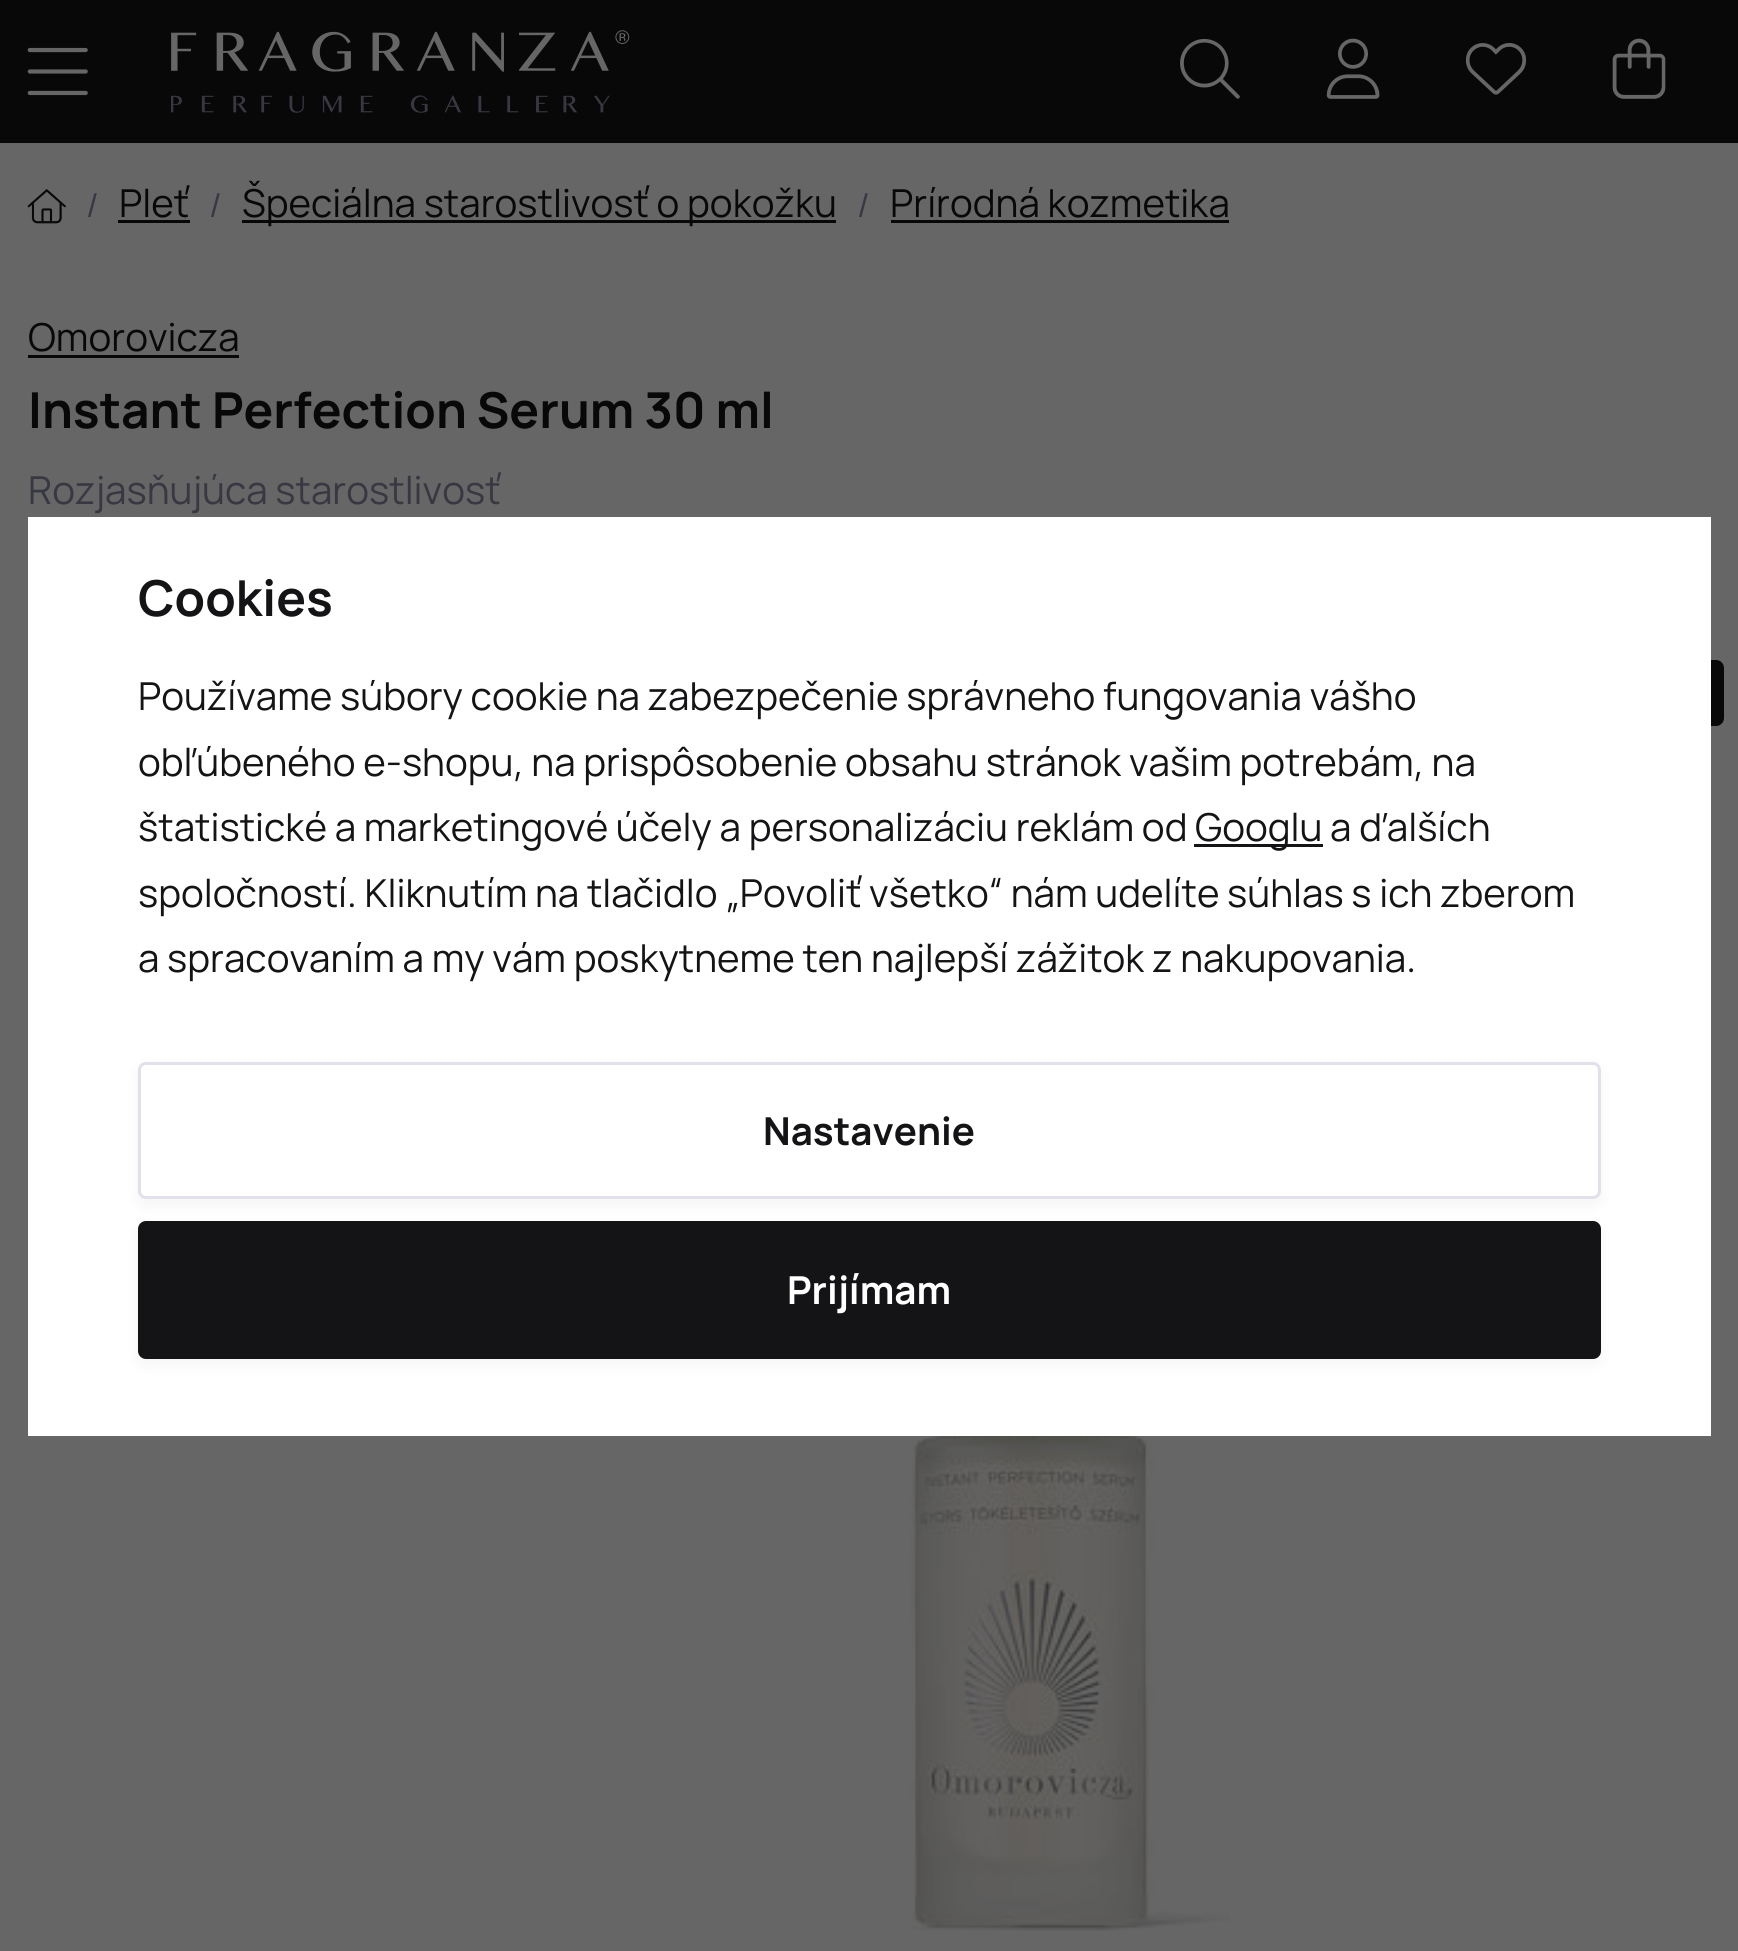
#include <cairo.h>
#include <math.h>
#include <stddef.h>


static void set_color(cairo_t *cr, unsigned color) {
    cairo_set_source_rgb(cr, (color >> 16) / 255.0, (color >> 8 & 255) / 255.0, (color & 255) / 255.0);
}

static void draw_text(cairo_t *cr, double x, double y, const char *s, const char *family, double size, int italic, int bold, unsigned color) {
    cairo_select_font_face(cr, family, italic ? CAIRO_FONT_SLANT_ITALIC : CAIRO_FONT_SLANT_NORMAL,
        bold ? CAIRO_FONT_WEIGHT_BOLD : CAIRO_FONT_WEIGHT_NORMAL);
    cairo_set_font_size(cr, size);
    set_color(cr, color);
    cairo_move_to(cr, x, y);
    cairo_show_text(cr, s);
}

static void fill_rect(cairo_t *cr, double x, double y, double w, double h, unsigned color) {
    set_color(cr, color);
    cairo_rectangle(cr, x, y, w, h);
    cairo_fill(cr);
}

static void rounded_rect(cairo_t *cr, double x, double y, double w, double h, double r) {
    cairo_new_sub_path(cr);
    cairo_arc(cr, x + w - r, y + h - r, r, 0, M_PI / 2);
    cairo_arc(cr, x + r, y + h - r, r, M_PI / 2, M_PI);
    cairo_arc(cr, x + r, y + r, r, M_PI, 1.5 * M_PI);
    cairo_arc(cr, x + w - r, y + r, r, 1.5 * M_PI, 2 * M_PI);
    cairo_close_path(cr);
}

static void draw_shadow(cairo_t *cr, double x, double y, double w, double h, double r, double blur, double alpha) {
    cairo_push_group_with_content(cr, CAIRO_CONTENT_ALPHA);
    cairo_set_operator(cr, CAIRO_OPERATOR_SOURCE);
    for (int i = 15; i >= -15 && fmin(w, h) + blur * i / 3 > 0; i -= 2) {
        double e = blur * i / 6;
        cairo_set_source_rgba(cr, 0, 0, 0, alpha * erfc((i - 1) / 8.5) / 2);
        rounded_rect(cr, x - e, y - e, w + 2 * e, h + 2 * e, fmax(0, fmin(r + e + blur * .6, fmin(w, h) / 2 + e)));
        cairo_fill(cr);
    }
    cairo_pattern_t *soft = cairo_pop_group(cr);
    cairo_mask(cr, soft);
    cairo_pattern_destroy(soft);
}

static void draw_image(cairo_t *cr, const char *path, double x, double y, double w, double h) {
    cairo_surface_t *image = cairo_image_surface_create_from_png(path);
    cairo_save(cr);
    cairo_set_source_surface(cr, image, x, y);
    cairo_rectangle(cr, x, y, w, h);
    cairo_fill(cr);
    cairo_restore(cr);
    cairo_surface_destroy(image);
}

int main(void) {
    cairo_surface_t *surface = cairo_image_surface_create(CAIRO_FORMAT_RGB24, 1738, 1951);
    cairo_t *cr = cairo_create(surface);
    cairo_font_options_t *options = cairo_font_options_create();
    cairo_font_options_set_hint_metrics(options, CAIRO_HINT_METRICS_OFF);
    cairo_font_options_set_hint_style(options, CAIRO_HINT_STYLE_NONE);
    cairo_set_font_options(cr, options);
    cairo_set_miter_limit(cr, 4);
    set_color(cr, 0x666666);
    cairo_paint(cr);
    fill_rect(cr, 0, 0, 1738, 143, 0x080809);
    draw_image(cr, "assets/img1.png", 27, 47, 61, 49);
    draw_image(cr, "assets/img2.png", 171, 30, 459, 83);
    draw_image(cr, "assets/img3.png", 1180, 38, 60, 61);
    draw_image(cr, "assets/img4.png", 1326, 38, 54, 61);
    draw_image(cr, "assets/img5.png", 1465, 43, 62, 52);
    draw_image(cr, "assets/img6.png", 1612, 38, 54, 61);
    draw_image(cr, "assets/img7.png", 27, 189, 39, 35);
    draw_text(cr, 86, 217, "/", "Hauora", 33, 0, 0, 0x383842);
    draw_text(cr, 119, 217, "Pleť", "Hauora", 38.5, 0, 0, 0x080809);
    fill_rect(cr, 118, 220, 72, 3, 0x080809);
    draw_text(cr, 209, 217, "/", "Hauora", 33, 0, 0, 0x383842);
    fill_rect(cr, 242, 220, 594, 3, 0x080809);
    draw_text(cr, 242, 217, "Špeciálna starostlivosť o pokožku", "Hauora", 38.5, 0, 0, 0x080809);
    draw_text(cr, 857, 217, "/", "Hauora", 33, 0, 0, 0x383842);
    draw_text(cr, 890, 217, "Prírodná kozmetika", "Hauora", 38.5, 0, 0, 0x080809);
    fill_rect(cr, 891, 220, 338, 3, 0x080809);
    draw_text(cr, 28, 351, "Omorovicza", "Hauora", 38.5, 0, 0, 0x080809);
    fill_rect(cr, 28, 355, 211, 3, 0x080809);
    draw_text(cr, 28, 428, "Instant Perfection Serum 30 ml", "Hauora", 49.5, 0, 1, 0x080809);
    draw_text(cr, 28, 504, "Rozjasňujúca starostlivosť", "Hauora", 38.5, 0, 0, 0x383842);
    set_color(cr, 0x080809);
    rounded_rect(cr, 1408, 660, 316, 66, 8);
    cairo_fill(cr);
    draw_image(cr, "assets/img8.png", 908, 1436, 322, 495);
    fill_rect(cr, 28, 517, 1683, 919, 0xFFFFFF);
    draw_text(cr, 138, 616, "Cookies", "Hauora", 49.5, 0, 1, 0x141416);
    draw_text(cr, 138, 710, "Používame súbory cookie na zabezpečenie správneho fungovania vášho", "Hauora", 38.5, 0, 0, 0x141416);
    draw_text(cr, 138, 776, "obľúbeného e-shopu, na prispôsobenie obsahu stránok vašim potrebám, na", "Hauora", 38.5, 0, 0, 0x141416);
    draw_text(cr, 138, 841, "štatistické a marketingové účely a personalizáciu reklám od", "Hauora", 38.5, 0, 0, 0x141416);
    fill_rect(cr, 1194, 844, 129, 3, 0x141416);
    draw_text(cr, 1195, 841, "Googlu a ďalších", "Hauora", 38.5, 0, 0, 0x141416);
    draw_text(cr, 138, 907, "spoločností. Kliknutím na tlačidlo „Povoliť všetko“ nám udelíte súhlas s ich zberom", "Hauora", 38.5, 0, 0, 0x141416);
    draw_text(cr, 138, 972, "a spracovaním a my vám poskytneme ten najlepší zážitok z nakupovania.", "Hauora", 38.5, 0, 0, 0x141416);
    set_color(cr, 0x141416);
    draw_shadow(cr, 138, 1067, 1463, 138, 8, 7, 0.05);
    set_color(cr, 0xFFFFFF);
    rounded_rect(cr, 139.5, 1063.5, 1460, 134, 6.5);
    cairo_fill_preserve(cr);
    set_color(cr, 0xE1E1EB);
    cairo_set_line_width(cr, 3);
    cairo_stroke(cr);
    draw_text(cr, 763, 1145, "Nastavenie", "Hauora", 38.5, 0, 1, 0x141416);
    set_color(cr, 0x141416);
    draw_shadow(cr, 138, 1227, 1463, 137, 8, 7, 0.05);
    set_color(cr, 0x141416);
    rounded_rect(cr, 139.5, 1222.5, 1460, 135, 6.5);
    cairo_fill_preserve(cr);
    cairo_stroke(cr);
    draw_text(cr, 787, 1304, "Prijímam", "Hauora", 38.5, 0, 1, 0xFFFFFF);
    cairo_surface_write_to_png(surface, "output.png");
    cairo_font_options_destroy(options);
    cairo_destroy(cr);
    cairo_surface_destroy(surface);
    return 0;
}
